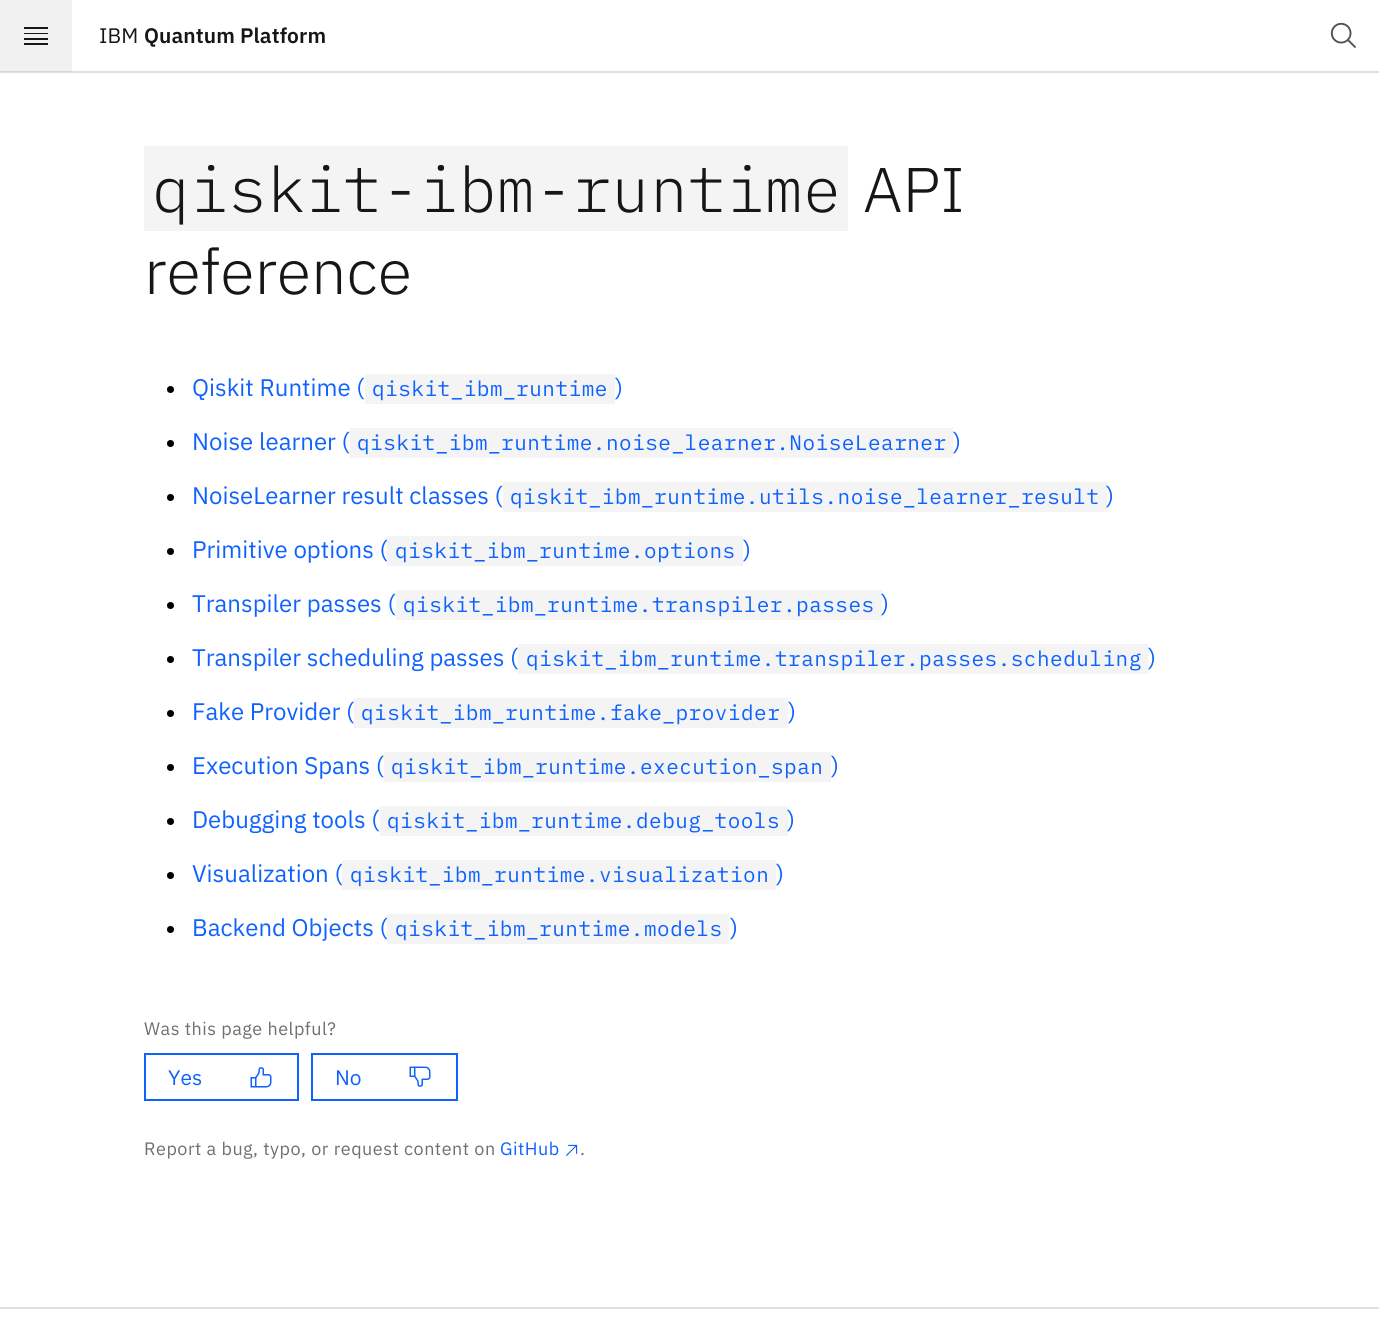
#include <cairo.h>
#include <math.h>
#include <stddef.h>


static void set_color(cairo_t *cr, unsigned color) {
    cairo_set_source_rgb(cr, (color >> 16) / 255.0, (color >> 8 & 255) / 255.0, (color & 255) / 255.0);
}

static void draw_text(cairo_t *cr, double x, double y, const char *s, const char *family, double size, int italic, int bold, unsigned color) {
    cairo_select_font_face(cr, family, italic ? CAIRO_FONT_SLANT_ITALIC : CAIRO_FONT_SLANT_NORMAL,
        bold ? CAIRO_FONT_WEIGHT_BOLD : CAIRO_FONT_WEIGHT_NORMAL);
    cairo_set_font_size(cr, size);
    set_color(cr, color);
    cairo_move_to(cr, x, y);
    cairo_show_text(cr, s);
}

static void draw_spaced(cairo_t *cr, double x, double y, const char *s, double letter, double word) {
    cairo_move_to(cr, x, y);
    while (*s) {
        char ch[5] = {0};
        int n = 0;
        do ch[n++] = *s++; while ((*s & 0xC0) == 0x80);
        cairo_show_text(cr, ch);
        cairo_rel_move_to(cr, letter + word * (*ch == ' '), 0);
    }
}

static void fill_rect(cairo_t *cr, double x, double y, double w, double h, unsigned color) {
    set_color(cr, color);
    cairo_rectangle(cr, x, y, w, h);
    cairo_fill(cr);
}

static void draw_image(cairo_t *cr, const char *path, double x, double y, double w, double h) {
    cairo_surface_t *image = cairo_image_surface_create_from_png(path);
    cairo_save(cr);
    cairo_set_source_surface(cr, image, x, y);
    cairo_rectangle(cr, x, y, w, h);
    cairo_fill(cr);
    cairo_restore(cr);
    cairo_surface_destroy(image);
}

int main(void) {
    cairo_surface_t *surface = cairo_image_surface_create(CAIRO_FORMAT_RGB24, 1379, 1326);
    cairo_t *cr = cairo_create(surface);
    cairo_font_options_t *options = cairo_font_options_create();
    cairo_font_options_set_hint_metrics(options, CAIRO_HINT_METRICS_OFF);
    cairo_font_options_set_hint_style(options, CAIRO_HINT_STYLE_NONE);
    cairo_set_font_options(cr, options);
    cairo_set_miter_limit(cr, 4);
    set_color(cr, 0xFFFFFF);
    cairo_paint(cr);
    fill_rect(cr, 0, 0, 72, 71, 0xF1F1F1);
    fill_rect(cr, 0, 71, 1379, 2, 0xE0E0E0);
    fill_rect(cr, 0, 71, 72, 1, 0xD6D6D6);
    fill_rect(cr, 24, 43, 24, 2, 0x161616);
    fill_rect(cr, 24, 38, 24, 2, 0x161616);
    fill_rect(cr, 24, 33, 24, 1, 0x161616);
    fill_rect(cr, 24, 27, 24, 2, 0x161616);
    cairo_select_font_face(cr, "IBM Plex Sans", CAIRO_FONT_SLANT_NORMAL, CAIRO_FONT_WEIGHT_NORMAL);
    cairo_set_font_size(cr, 21);
    draw_spaced(cr, 99, 43, "IBM", 0.1, 0);
    cairo_select_font_face(cr, "IBM Plex Sans SemiBold", CAIRO_FONT_SLANT_NORMAL, CAIRO_FONT_WEIGHT_NORMAL);
    draw_spaced(cr, 144, 43, "Quantum Platform", 0.1, 0);
    draw_image(cr, "assets/img1.png", 1330, 22, 27, 27);
    fill_rect(cr, 144, 146, 704, 85, 0xF4F4F4);
    cairo_select_font_face(cr, "IBM Plex Mono Light", CAIRO_FONT_SLANT_NORMAL, CAIRO_FONT_WEIGHT_NORMAL);
    cairo_set_font_size(cr, 63);
    set_color(cr, 0x161616);
    draw_spaced(cr, 152, 212, "qiskit-ibm-runtime", 0.5, 0);
    draw_text(cr, 863, 212, "API", "IBM Plex Sans Light", 63, 0, 0, 0x161616);
    draw_text(cr, 144, 294, "reference", "IBM Plex Sans Light", 63, 0, 0, 0x161616);
    set_color(cr, 0x000000);
    cairo_new_path(cr);
    cairo_arc(cr, 170.5, 389.5, 3.5, 0, 2 * M_PI);
    cairo_fill(cr);
    draw_text(cr, 192, 396, "Qiskit Runtime (", "IBM Plex Sans", 24, 0, 0, 0x0F62FE);
    fill_rect(cr, 365, 374, 250, 30, 0xF4F4F4);
    cairo_select_font_face(cr, "IBM Plex Mono", CAIRO_FONT_SLANT_NORMAL, CAIRO_FONT_WEIGHT_NORMAL);
    cairo_set_font_size(cr, 21);
    set_color(cr, 0x0F62FE);
    draw_spaced(cr, 372, 396, "qiskit_ibm_runtime", 0.5, 0);
    draw_text(cr, 615, 396, ")", "IBM Plex Sans", 24, 0, 0, 0x0F62FE);
    set_color(cr, 0x000000);
    cairo_new_path(cr);
    cairo_arc(cr, 170.5, 443.5, 3.5, 0, 2 * M_PI);
    cairo_fill(cr);
    draw_text(cr, 192, 450, "Noise learner (", "IBM Plex Sans", 24, 0, 0, 0x0F62FE);
    fill_rect(cr, 350, 428, 603, 30, 0xF4F4F4);
    cairo_select_font_face(cr, "IBM Plex Mono", CAIRO_FONT_SLANT_NORMAL, CAIRO_FONT_WEIGHT_NORMAL);
    cairo_set_font_size(cr, 21);
    set_color(cr, 0x0F62FE);
    draw_spaced(cr, 357, 450, "qiskit_ibm_runtime.noise_learner.NoiseLearner", 0.5, 0);
    draw_text(cr, 953, 450, ")", "IBM Plex Sans", 24, 0, 0, 0x0F62FE);
    set_color(cr, 0x000000);
    cairo_new_path(cr);
    cairo_arc(cr, 170.5, 497.5, 3.5, 0, 2 * M_PI);
    cairo_fill(cr);
    draw_text(cr, 192, 504, "NoiseLearner result classes (", "IBM Plex Sans", 24, 0, 0, 0x0F62FE);
    fill_rect(cr, 503, 482, 604, 30, 0xF4F4F4);
    cairo_select_font_face(cr, "IBM Plex Mono", CAIRO_FONT_SLANT_NORMAL, CAIRO_FONT_WEIGHT_NORMAL);
    cairo_set_font_size(cr, 21);
    set_color(cr, 0x0F62FE);
    draw_spaced(cr, 510, 504, "qiskit_ibm_runtime.utils.noise_learner_result", 0.5, 0);
    draw_text(cr, 1106, 504, ")", "IBM Plex Sans", 24, 0, 0, 0x0F62FE);
    set_color(cr, 0x000000);
    cairo_new_path(cr);
    cairo_arc(cr, 170.5, 551.5, 3.5, 0, 2 * M_PI);
    cairo_fill(cr);
    draw_text(cr, 192, 558, "Primitive options (", "IBM Plex Sans", 24, 0, 0, 0x0F62FE);
    fill_rect(cr, 387, 536, 356, 30, 0xF4F4F4);
    cairo_select_font_face(cr, "IBM Plex Mono", CAIRO_FONT_SLANT_NORMAL, CAIRO_FONT_WEIGHT_NORMAL);
    cairo_set_font_size(cr, 21);
    set_color(cr, 0x0F62FE);
    draw_spaced(cr, 395, 558, "qiskit_ibm_runtime.options", 0.5, 0);
    draw_text(cr, 743, 558, ")", "IBM Plex Sans", 24, 0, 0, 0x0F62FE);
    set_color(cr, 0x000000);
    cairo_new_path(cr);
    cairo_arc(cr, 170.5, 605.5, 3.5, 0, 2 * M_PI);
    cairo_fill(cr);
    draw_text(cr, 192, 612, "Transpiler passes (", "IBM Plex Sans", 24, 0, 0, 0x0F62FE);
    fill_rect(cr, 396, 590, 486, 30, 0xF4F4F4);
    cairo_select_font_face(cr, "IBM Plex Mono", CAIRO_FONT_SLANT_NORMAL, CAIRO_FONT_WEIGHT_NORMAL);
    cairo_set_font_size(cr, 21);
    set_color(cr, 0x0F62FE);
    draw_spaced(cr, 403, 612, "qiskit_ibm_runtime.transpiler.passes", 0.5, 0);
    draw_text(cr, 881, 612, ")", "IBM Plex Sans", 24, 0, 0, 0x0F62FE);
    set_color(cr, 0x000000);
    cairo_new_path(cr);
    cairo_arc(cr, 170.5, 659.5, 3.5, 0, 2 * M_PI);
    cairo_fill(cr);
    draw_text(cr, 192, 666, "Transpiler scheduling passes (", "IBM Plex Sans", 24, 0, 0, 0x0F62FE);
    fill_rect(cr, 518, 644, 630, 30, 0xF4F4F4);
    cairo_select_font_face(cr, "IBM Plex Mono", CAIRO_FONT_SLANT_NORMAL, CAIRO_FONT_WEIGHT_NORMAL);
    cairo_set_font_size(cr, 21);
    set_color(cr, 0x0F62FE);
    draw_spaced(cr, 526, 666, "qiskit_ibm_runtime.transpiler.passes.scheduling", 0.5, 0);
    draw_text(cr, 1148, 666, ")", "IBM Plex Sans", 24, 0, 0, 0x0F62FE);
    set_color(cr, 0x000000);
    cairo_new_path(cr);
    cairo_arc(cr, 170.5, 713.5, 3.5, 0, 2 * M_PI);
    cairo_fill(cr);
    draw_text(cr, 192, 720, "Fake Provider (", "IBM Plex Sans", 24, 0, 0, 0x0F62FE);
    fill_rect(cr, 354, 698, 434, 30, 0xF4F4F4);
    cairo_select_font_face(cr, "IBM Plex Mono", CAIRO_FONT_SLANT_NORMAL, CAIRO_FONT_WEIGHT_NORMAL);
    cairo_set_font_size(cr, 21);
    set_color(cr, 0x0F62FE);
    draw_spaced(cr, 361, 720, "qiskit_ibm_runtime.fake_provider", 0.5, 0);
    draw_text(cr, 788, 720, ")", "IBM Plex Sans", 24, 0, 0, 0x0F62FE);
    set_color(cr, 0x000000);
    cairo_new_path(cr);
    cairo_arc(cr, 170.5, 767.5, 3.5, 0, 2 * M_PI);
    cairo_fill(cr);
    draw_text(cr, 192, 774, "Execution Spans (", "IBM Plex Sans", 24, 0, 0, 0x0F62FE);
    fill_rect(cr, 384, 752, 447, 30, 0xF4F4F4);
    cairo_select_font_face(cr, "IBM Plex Mono", CAIRO_FONT_SLANT_NORMAL, CAIRO_FONT_WEIGHT_NORMAL);
    cairo_set_font_size(cr, 21);
    set_color(cr, 0x0F62FE);
    draw_spaced(cr, 391, 774, "qiskit_ibm_runtime.execution_span", 0.5, 0);
    draw_text(cr, 831, 774, ")", "IBM Plex Sans", 24, 0, 0, 0x0F62FE);
    set_color(cr, 0x000000);
    cairo_new_path(cr);
    cairo_arc(cr, 170.5, 821.5, 3.5, 0, 2 * M_PI);
    cairo_fill(cr);
    draw_text(cr, 192, 828, "Debugging tools (", "IBM Plex Sans", 24, 0, 0, 0x0F62FE);
    fill_rect(cr, 380, 806, 408, 30, 0xF4F4F4);
    cairo_select_font_face(cr, "IBM Plex Mono", CAIRO_FONT_SLANT_NORMAL, CAIRO_FONT_WEIGHT_NORMAL);
    cairo_set_font_size(cr, 21);
    set_color(cr, 0x0F62FE);
    draw_spaced(cr, 387, 828, "qiskit_ibm_runtime.debug_tools", 0.5, 0);
    draw_text(cr, 787, 828, ")", "IBM Plex Sans", 24, 0, 0, 0x0F62FE);
    set_color(cr, 0x000000);
    cairo_new_path(cr);
    cairo_arc(cr, 170.5, 875.5, 3.5, 0, 2 * M_PI);
    cairo_fill(cr);
    draw_text(cr, 192, 882, "Visualization (", "IBM Plex Sans", 24, 0, 0, 0x0F62FE);
    fill_rect(cr, 342, 860, 434, 30, 0xF4F4F4);
    cairo_select_font_face(cr, "IBM Plex Mono", CAIRO_FONT_SLANT_NORMAL, CAIRO_FONT_WEIGHT_NORMAL);
    cairo_set_font_size(cr, 21);
    set_color(cr, 0x0F62FE);
    draw_spaced(cr, 350, 882, "qiskit_ibm_runtime.visualization", 0.5, 0);
    draw_text(cr, 776, 882, ")", "IBM Plex Sans", 24, 0, 0, 0x0F62FE);
    set_color(cr, 0x000000);
    cairo_new_path(cr);
    cairo_arc(cr, 170.5, 929.5, 3.5, 0, 2 * M_PI);
    cairo_fill(cr);
    draw_text(cr, 192, 936, "Backend Objects (", "IBM Plex Sans", 24, 0, 0, 0x0F62FE);
    fill_rect(cr, 387, 914, 342, 30, 0xF4F4F4);
    cairo_select_font_face(cr, "IBM Plex Mono", CAIRO_FONT_SLANT_NORMAL, CAIRO_FONT_WEIGHT_NORMAL);
    cairo_set_font_size(cr, 21);
    set_color(cr, 0x0F62FE);
    draw_spaced(cr, 395, 936, "qiskit_ibm_runtime.models", 0.5, 0);
    draw_text(cr, 730, 936, ")", "IBM Plex Sans", 24, 0, 0, 0x0F62FE);
    cairo_set_font_size(cr, 18);
    set_color(cr, 0x6F6F6F);
    draw_spaced(cr, 144, 1035, "Was this page helpful?", 0.5, 0);
    cairo_rectangle(cr, 145, 1054, 153, 46);
    set_color(cr, 0x0F62FE);
    cairo_stroke(cr);
    draw_text(cr, 168, 1085, "Yes", "IBM Plex Sans", 21, 0, 0, 0x0F62FE);
    draw_image(cr, "assets/img2.png", 250, 1067, 22, 21);
    cairo_rectangle(cr, 312, 1054, 145, 46);
    cairo_stroke(cr);
    draw_text(cr, 335, 1085, "No", "IBM Plex Sans", 21, 0, 0, 0x0F62FE);
    draw_image(cr, "assets/img3.png", 409, 1066, 22, 21);
    cairo_set_font_size(cr, 18);
    set_color(cr, 0x6F6F6F);
    draw_spaced(cr, 144, 1155, "Report a bug, typo, or request content on", 0.5, 0);
    set_color(cr, 0x0F62FE);
    draw_spaced(cr, 500, 1155, "GitHub", 0.5, 0);
    draw_image(cr, "assets/img4.png", 566, 1144, 12, 12);
    set_color(cr, 0x6F6F6F);
    draw_spaced(cr, 580, 1155, ".", 0.5, 0);
    fill_rect(cr, 0, 1307, 1379, 2, 0xE0E0E0);
    cairo_surface_write_to_png(surface, "output.png");
    cairo_font_options_destroy(options);
    cairo_destroy(cr);
    cairo_surface_destroy(surface);
    return 0;
}
